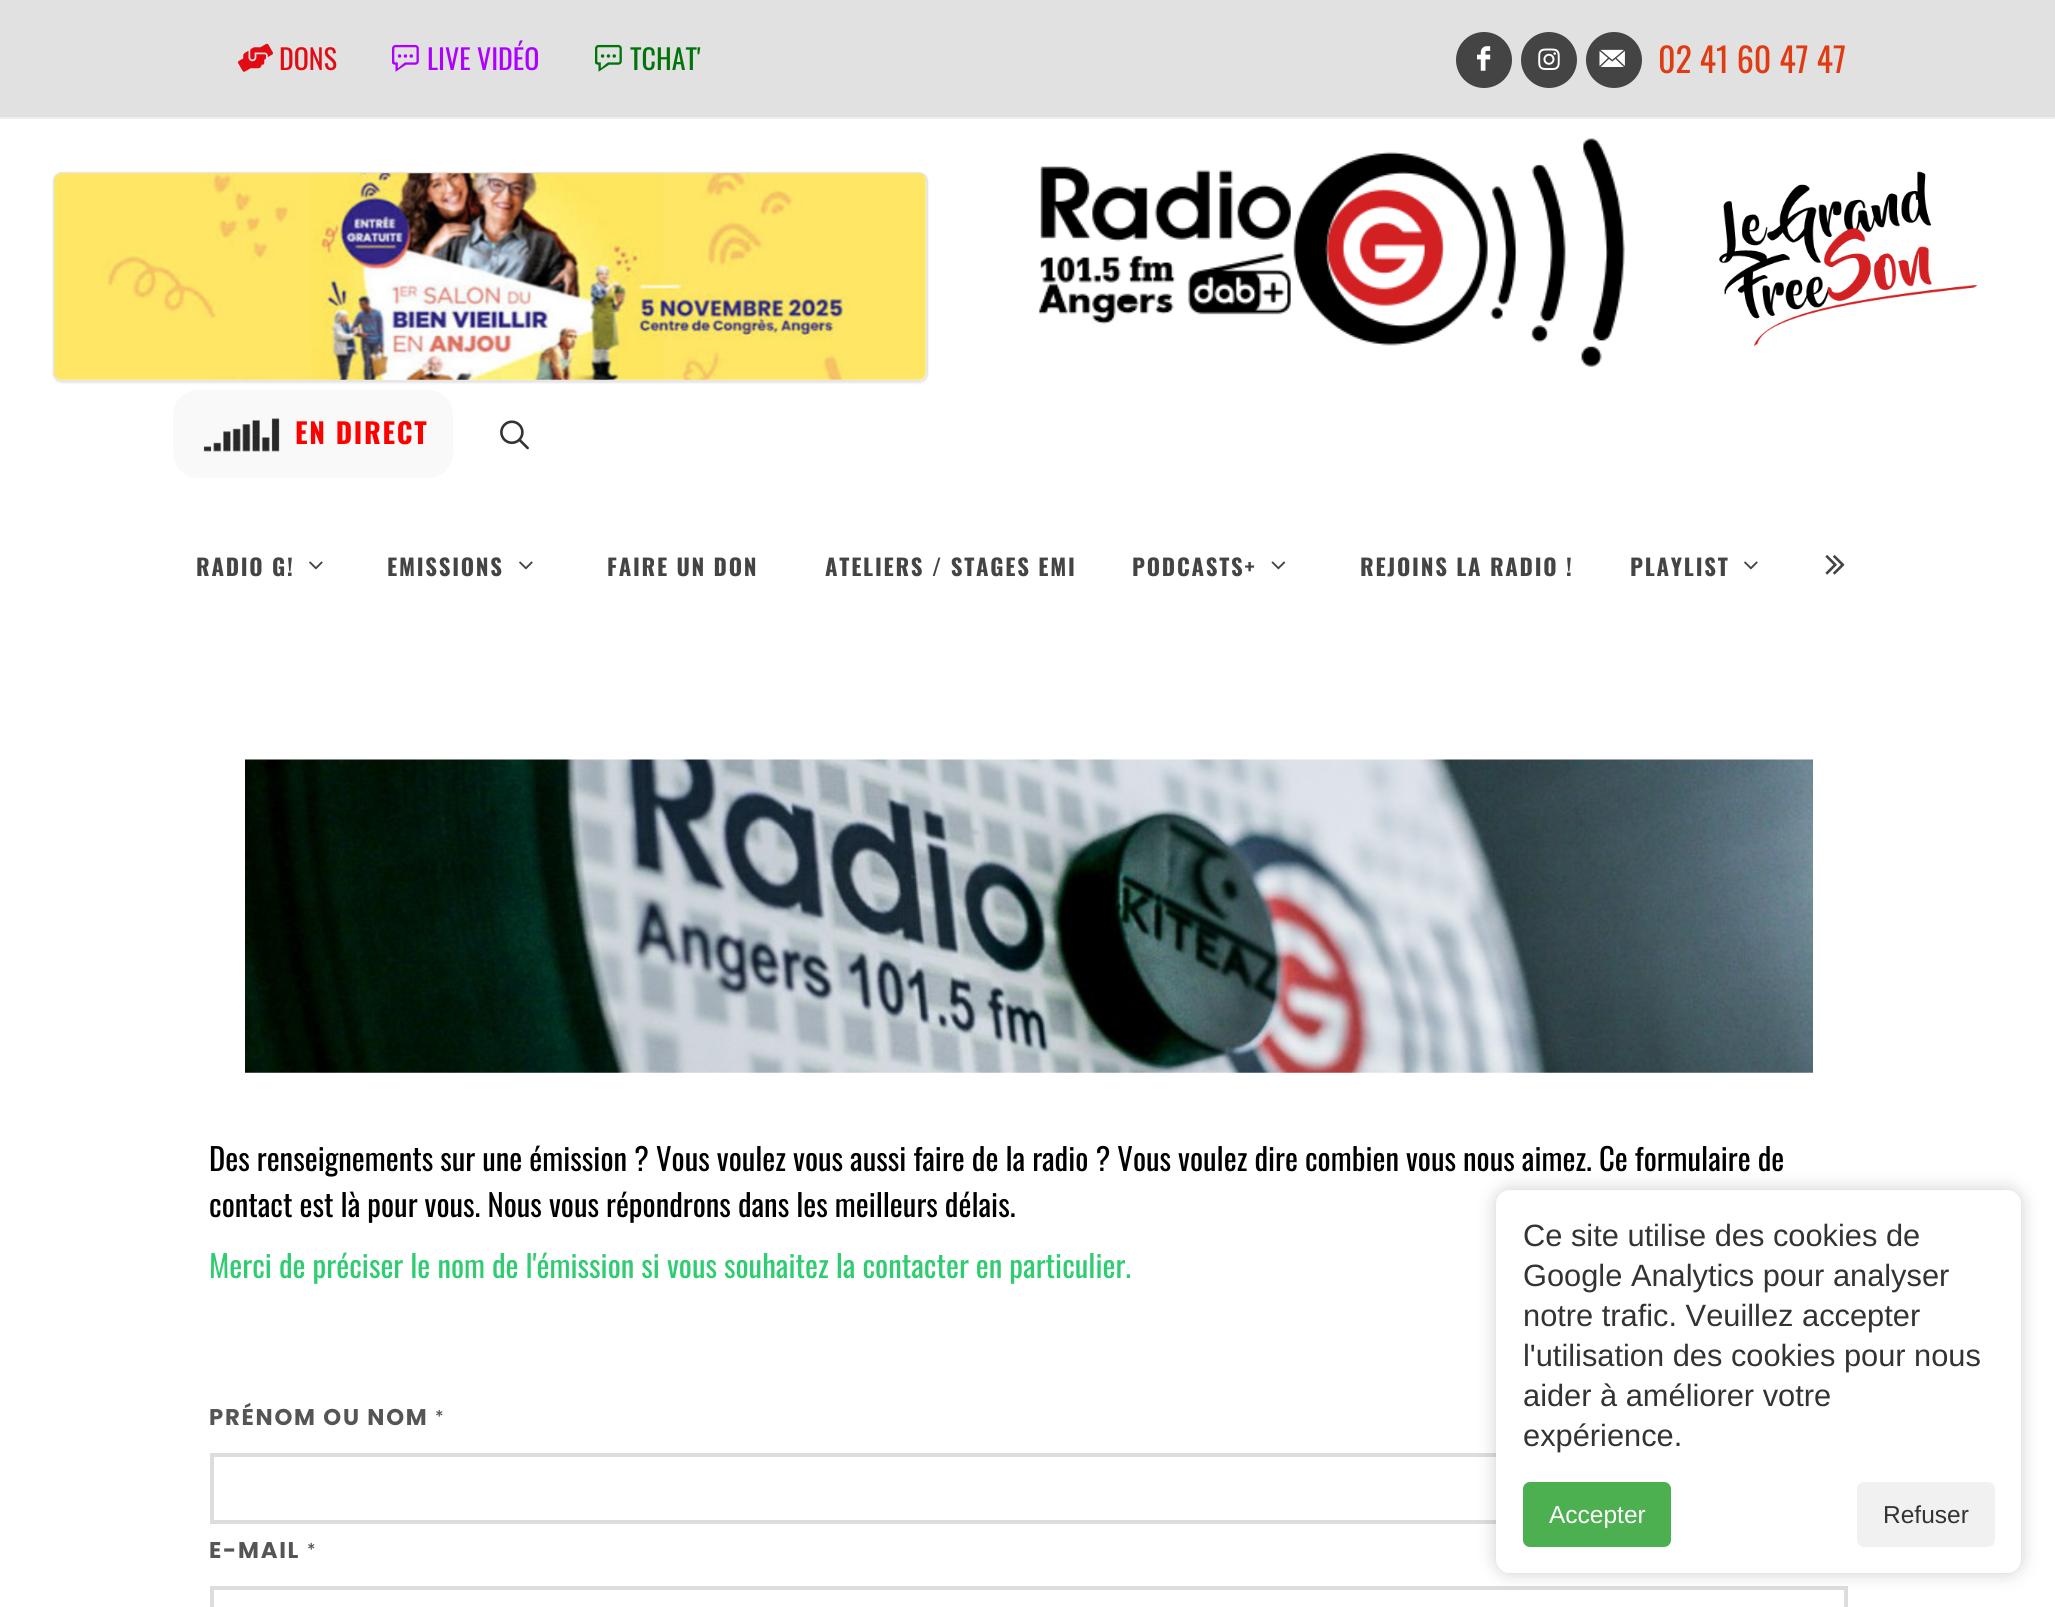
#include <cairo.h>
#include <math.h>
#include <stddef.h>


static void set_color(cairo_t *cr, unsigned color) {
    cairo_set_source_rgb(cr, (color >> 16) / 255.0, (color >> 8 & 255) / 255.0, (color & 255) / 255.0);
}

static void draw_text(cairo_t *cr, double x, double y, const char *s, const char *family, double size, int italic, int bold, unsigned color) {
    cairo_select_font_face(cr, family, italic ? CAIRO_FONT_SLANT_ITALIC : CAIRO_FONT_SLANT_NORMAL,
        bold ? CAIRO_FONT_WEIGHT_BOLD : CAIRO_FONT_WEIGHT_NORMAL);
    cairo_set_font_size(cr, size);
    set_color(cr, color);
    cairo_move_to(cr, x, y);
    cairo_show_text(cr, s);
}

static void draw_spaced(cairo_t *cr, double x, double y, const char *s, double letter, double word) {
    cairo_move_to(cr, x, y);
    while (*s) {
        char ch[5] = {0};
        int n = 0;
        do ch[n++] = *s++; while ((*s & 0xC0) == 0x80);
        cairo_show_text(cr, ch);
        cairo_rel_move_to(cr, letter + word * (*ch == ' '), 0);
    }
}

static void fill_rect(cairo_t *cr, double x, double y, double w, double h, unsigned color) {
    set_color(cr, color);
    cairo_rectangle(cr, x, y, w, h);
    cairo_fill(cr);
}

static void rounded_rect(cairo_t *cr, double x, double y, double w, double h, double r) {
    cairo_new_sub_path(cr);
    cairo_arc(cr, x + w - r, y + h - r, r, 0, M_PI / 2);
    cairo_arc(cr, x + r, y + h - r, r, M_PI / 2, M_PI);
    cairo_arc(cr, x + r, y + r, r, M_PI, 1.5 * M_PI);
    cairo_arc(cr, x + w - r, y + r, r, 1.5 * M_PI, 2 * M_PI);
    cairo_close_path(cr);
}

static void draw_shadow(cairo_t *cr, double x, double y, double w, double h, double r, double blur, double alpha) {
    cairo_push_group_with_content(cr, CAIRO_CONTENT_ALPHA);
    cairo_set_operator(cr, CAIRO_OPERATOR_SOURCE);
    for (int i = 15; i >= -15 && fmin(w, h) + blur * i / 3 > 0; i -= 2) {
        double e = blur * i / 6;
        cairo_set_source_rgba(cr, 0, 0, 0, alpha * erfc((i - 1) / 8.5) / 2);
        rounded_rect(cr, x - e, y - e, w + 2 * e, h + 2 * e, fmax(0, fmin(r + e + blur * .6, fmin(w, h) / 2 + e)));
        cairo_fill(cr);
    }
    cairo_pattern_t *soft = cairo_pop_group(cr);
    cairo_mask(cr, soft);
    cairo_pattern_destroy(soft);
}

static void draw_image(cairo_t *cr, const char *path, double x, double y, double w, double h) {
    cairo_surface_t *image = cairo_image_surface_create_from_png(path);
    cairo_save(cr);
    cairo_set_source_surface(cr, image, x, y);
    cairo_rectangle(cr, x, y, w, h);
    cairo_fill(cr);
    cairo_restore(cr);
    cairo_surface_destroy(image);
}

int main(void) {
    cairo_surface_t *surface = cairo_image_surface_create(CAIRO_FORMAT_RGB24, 2055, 1607);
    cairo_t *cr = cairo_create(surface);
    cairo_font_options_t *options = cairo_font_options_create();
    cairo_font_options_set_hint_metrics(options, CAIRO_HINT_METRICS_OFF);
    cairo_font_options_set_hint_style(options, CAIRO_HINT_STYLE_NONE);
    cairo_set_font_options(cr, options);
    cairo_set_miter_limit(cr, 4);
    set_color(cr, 0xFFFFFF);
    cairo_paint(cr);
    fill_rect(cr, 0, 0, 2055, 117, 0xE1E1E1);
    fill_rect(cr, 0, 117, 2055, 2, 0xEEEEEE);
    draw_image(cr, "assets/img1.png", 238, 43, 35, 29);
    draw_text(cr, 279, 70, "DONS", "Oswald", 28, 0, 0, 0xE30B13);
    draw_image(cr, "assets/img2.png", 392, 44, 27, 28);
    draw_text(cr, 427, 70, "LIVE VIDÉO", "Oswald", 28, 0, 0, 0xAE00FF);
    draw_image(cr, "assets/img3.png", 595, 44, 27, 28);
    draw_text(cr, 630, 70, "TCHAT'", "Oswald", 28, 0, 0, 0x007309);
    set_color(cr, 0x444444);
    cairo_new_path(cr);
    cairo_arc(cr, 1484, 60, 28, 0, 2 * M_PI);
    cairo_fill(cr);
    draw_image(cr, "assets/img4.png", 1477, 46, 14, 25);
    cairo_arc(cr, 1549, 60, 28, 0, 2 * M_PI);
    cairo_fill(cr);
    draw_image(cr, "assets/img5.png", 1538, 48, 22, 22);
    cairo_arc(cr, 1614, 60, 28, 0, 2 * M_PI);
    cairo_fill(cr);
    draw_image(cr, "assets/img6.png", 1599, 49, 26, 18);
    draw_text(cr, 1658, 73, "02 41 60 47 47", "Oswald", 34, 0, 0, 0xE03B13);
    set_color(cr, 0x000000);
    draw_shadow(cr, 53, 173, 875, 210, 9, 1, 0.1);
    set_color(cr, 0xFFFFFF);
    rounded_rect(cr, 53, 172, 875, 210, 9);
    cairo_fill(cr);
    rounded_rect(cr, 54, 173, 873, 208, 8);
    cairo_set_source_rgba(cr, 0, 0, 0, 0.1);
    cairo_stroke(cr);
    draw_image(cr, "assets/img7.png", 54, 173, 872, 207);
    draw_image(cr, "assets/img8.png", 1038, 138, 587, 229);
    draw_image(cr, "assets/img9.png", 1719, 171, 259, 176);
    set_color(cr, 0xF9F9F9);
    rounded_rect(cr, 173, 390, 280, 88, 25);
    cairo_fill(cr);
    draw_image(cr, "assets/img10.png", 203, 418, 77, 34);
    cairo_select_font_face(cr, "Oswald", CAIRO_FONT_SLANT_NORMAL, CAIRO_FONT_WEIGHT_BOLD);
    cairo_set_font_size(cr, 28);
    set_color(cr, 0xFF0000);
    draw_spaced(cr, 295, 444, "EN DIRECT", 1.75, 0);
    draw_image(cr, "assets/img11.png", 500, 420, 29, 30);
    cairo_set_font_size(cr, 22.75);
    set_color(cr, 0x444444);
    draw_spaced(cr, 196, 576, "RADIO G!", 1.75, 0);
    draw_image(cr, "assets/img12.png", 309, 561, 14, 9);
    draw_spaced(cr, 387, 576, "EMISSIONS", 1.75, 0);
    draw_image(cr, "assets/img12.png", 519, 561, 14, 9);
    draw_spaced(cr, 607, 576, "FAIRE UN DON", 1.75, 0);
    draw_spaced(cr, 825, 576, "ATELIERS / STAGES EMI", 1.75, 0);
    draw_spaced(cr, 1132, 576, "PODCASTS+", 1.75, 0);
    draw_image(cr, "assets/img13.png", 1271, 561, 15, 9);
    draw_spaced(cr, 1360, 576, "REJOINS LA RADIO !", 1.75, 0);
    draw_spaced(cr, 1630, 576, "PLAYLIST", 1.75, 0);
    draw_image(cr, "assets/img12.png", 1744, 561, 14, 9);
    draw_image(cr, "assets/img14.png", 1825, 555, 20, 20);
    draw_image(cr, "assets/img15.png", 245, 759, 1568, 314);
    draw_text(cr, 209, 1171, "Des renseignements sur une émission ? Vous voulez vous aussi faire de la radio ? Vous voulez dire combien vous nous aimez. Ce formulaire de", "Oswald", 30.8, 0, 0, 0x000000);
    draw_text(cr, 209, 1217, "contact est là pour vous. Nous vous répondrons dans les meilleurs délais.", "Oswald", 30.8, 0, 0, 0x000000);
    draw_text(cr, 209, 1278, "Merci de préciser le nom de l'émission si vous souhaitez la contacter en particulier.", "Oswald", 30.8, 0, 0, 0x2FCC71);
    cairo_select_font_face(cr, "Poppins", CAIRO_FONT_SLANT_NORMAL, CAIRO_FONT_WEIGHT_BOLD);
    cairo_set_font_size(cr, 22.75);
    set_color(cr, 0x555555);
    draw_spaced(cr, 209, 1425, "PRÉNOM OU NOM", 1.75, 0);
    cairo_select_font_face(cr, "Lato", CAIRO_FONT_SLANT_NORMAL, CAIRO_FONT_WEIGHT_BOLD);
    cairo_set_font_size(cr, 20);
    draw_spaced(cr, 435, 1425, "*", 1.75, 0);
    cairo_rectangle(cr, 212, 1455, 1634, 67);
    set_color(cr, 0xDDDDDD);
    cairo_set_line_width(cr, 4);
    cairo_stroke(cr);
    cairo_select_font_face(cr, "Poppins", CAIRO_FONT_SLANT_NORMAL, CAIRO_FONT_WEIGHT_BOLD);
    cairo_set_font_size(cr, 22.75);
    set_color(cr, 0x555555);
    draw_spaced(cr, 209, 1558, "E-MAIL", 1.75, 0);
    cairo_select_font_face(cr, "Lato", CAIRO_FONT_SLANT_NORMAL, CAIRO_FONT_WEIGHT_BOLD);
    cairo_set_font_size(cr, 20);
    draw_spaced(cr, 307, 1558, "*", 1.75, 0);
    cairo_rectangle(cr, 212, 1588, 1634, 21);
    set_color(cr, 0xDDDDDD);
    cairo_stroke(cr);
    set_color(cr, 0x000000);
    draw_shadow(cr, 1496, 1190, 525, 383, 14, 9, 0.2);
    set_color(cr, 0xFFFFFF);
    rounded_rect(cr, 1496, 1190, 525, 383, 14);
    cairo_fill(cr);
    draw_text(cr, 1523, 1246, "Ce site utilise des cookies de", "Liberation Sans", 30.8, 0, 0, 0x333333);
    draw_text(cr, 1523, 1286, "Google Analytics pour analyser", "Liberation Sans", 30.8, 0, 0, 0x333333);
    draw_text(cr, 1523, 1326, "notre trafic. Veuillez accepter", "Liberation Sans", 30.8, 0, 0, 0x333333);
    draw_text(cr, 1523, 1366, "l'utilisation des cookies pour nous", "Liberation Sans", 30.8, 0, 0, 0x333333);
    draw_text(cr, 1523, 1406, "aider à améliorer votre", "Liberation Sans", 30.8, 0, 0, 0x333333);
    draw_text(cr, 1523, 1446, "expérience.", "Liberation Sans", 30.8, 0, 0, 0x333333);
    set_color(cr, 0x4CAF50);
    rounded_rect(cr, 1523, 1482, 148, 65, 7);
    cairo_fill(cr);
    draw_text(cr, 1549, 1523, "Accepter", "Liberation Sans", 24.5, 0, 0, 0xFFFFFF);
    set_color(cr, 0xF1F1F1);
    rounded_rect(cr, 1857, 1482, 138, 65, 7);
    cairo_fill(cr);
    draw_text(cr, 1883, 1523, "Refuser", "Liberation Sans", 24.5, 0, 0, 0x333333);
    cairo_surface_write_to_png(surface, "output.png");
    cairo_font_options_destroy(options);
    cairo_destroy(cr);
    cairo_surface_destroy(surface);
    return 0;
}
